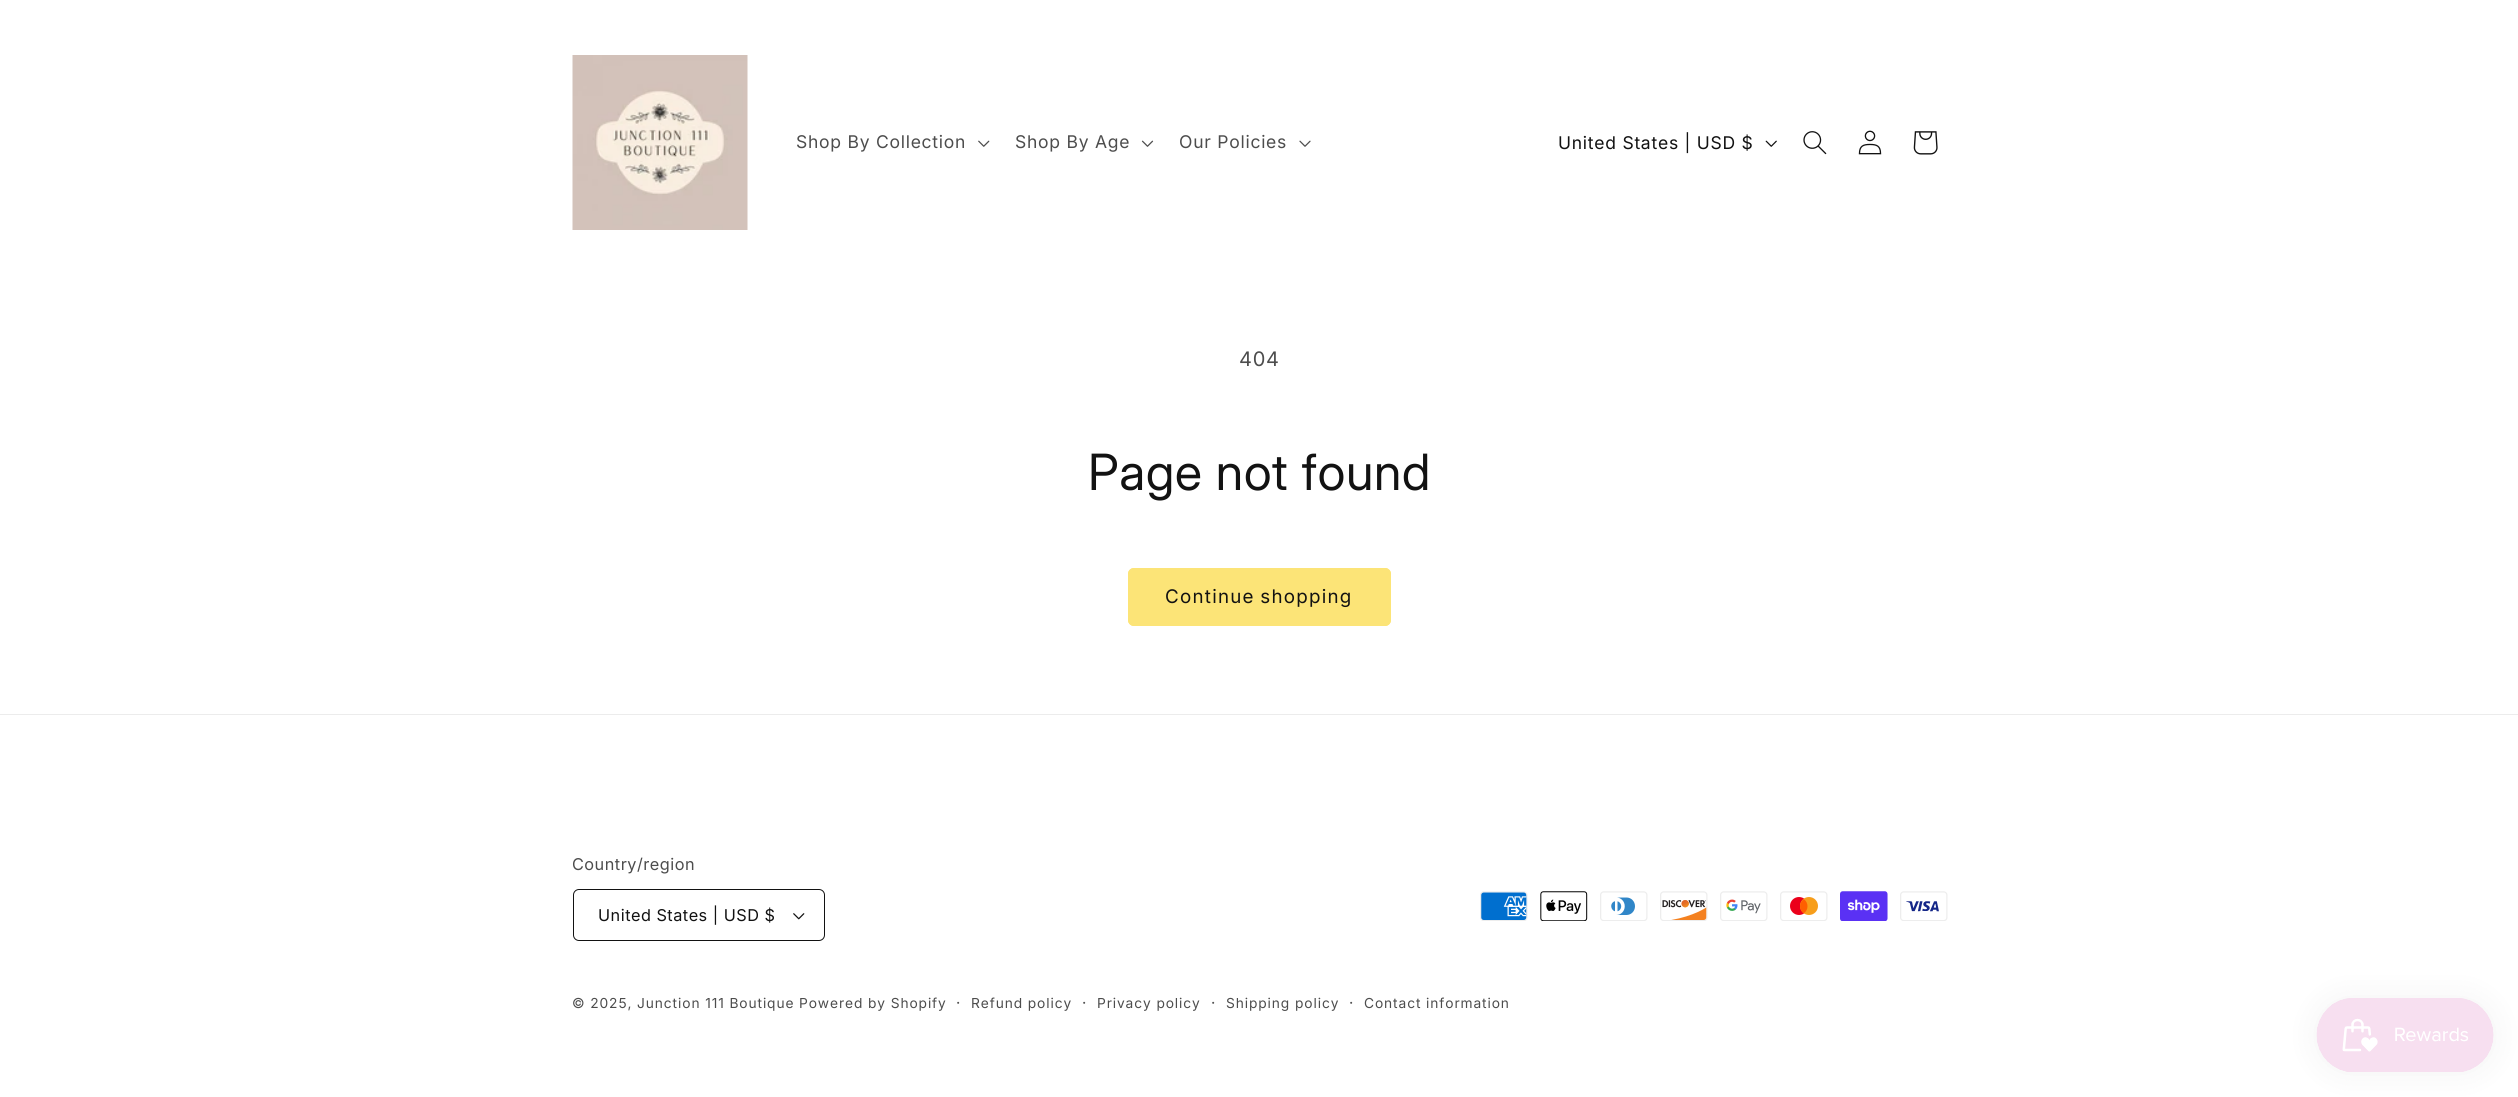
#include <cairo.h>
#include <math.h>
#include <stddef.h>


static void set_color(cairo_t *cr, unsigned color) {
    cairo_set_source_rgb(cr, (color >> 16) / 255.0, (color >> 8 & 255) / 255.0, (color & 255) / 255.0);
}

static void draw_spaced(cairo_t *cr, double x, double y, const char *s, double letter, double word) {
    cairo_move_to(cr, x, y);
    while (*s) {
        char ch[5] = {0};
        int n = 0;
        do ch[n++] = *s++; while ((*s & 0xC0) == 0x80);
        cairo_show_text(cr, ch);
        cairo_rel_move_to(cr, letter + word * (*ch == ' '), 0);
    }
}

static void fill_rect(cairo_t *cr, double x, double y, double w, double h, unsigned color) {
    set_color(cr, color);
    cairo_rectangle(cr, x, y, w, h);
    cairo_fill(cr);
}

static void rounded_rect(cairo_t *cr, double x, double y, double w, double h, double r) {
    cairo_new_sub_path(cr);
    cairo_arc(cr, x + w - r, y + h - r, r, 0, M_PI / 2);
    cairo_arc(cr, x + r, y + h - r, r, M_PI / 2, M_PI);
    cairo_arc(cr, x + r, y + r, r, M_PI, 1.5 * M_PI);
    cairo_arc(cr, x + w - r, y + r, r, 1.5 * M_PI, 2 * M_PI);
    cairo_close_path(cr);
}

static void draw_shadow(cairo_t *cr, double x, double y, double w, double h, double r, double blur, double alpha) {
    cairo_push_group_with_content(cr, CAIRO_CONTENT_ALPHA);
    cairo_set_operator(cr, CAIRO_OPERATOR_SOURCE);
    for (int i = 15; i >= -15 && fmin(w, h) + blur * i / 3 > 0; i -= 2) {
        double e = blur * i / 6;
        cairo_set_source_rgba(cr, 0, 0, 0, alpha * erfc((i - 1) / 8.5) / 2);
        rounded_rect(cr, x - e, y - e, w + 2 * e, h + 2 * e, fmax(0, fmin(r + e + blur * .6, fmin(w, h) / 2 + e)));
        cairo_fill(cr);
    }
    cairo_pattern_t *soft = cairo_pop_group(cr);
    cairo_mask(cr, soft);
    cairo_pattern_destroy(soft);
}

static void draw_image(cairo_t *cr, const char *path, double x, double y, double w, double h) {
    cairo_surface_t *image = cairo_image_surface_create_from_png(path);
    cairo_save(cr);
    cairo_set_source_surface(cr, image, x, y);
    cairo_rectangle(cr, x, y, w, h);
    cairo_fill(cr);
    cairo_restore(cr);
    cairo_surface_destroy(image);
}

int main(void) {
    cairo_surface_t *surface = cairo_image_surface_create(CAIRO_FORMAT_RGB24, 2518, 1097);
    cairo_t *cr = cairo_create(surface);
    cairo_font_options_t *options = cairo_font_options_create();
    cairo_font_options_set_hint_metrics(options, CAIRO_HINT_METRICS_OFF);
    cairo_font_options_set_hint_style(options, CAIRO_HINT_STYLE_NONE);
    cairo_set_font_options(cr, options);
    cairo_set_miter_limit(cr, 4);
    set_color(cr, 0xFFFFFF);
    cairo_paint(cr);
    draw_image(cr, "assets/img1.png", 572, 55, 176, 175);
    cairo_select_font_face(cr, "Inter", CAIRO_FONT_SLANT_NORMAL, CAIRO_FONT_WEIGHT_NORMAL);
    cairo_set_font_size(cr, 17.5);
    set_color(cr, 0x4D4D4D);
    draw_spaced(cr, 796, 148, "Shop By Collection", 0.75, 0);
    draw_image(cr, "assets/img2.png", 978, 140, 12, 7);
    draw_spaced(cr, 1015, 148, "Shop By Age", 0.75, 0);
    draw_image(cr, "assets/img3.png", 1141, 140, 13, 7);
    draw_spaced(cr, 1179, 148, "Our Policies", 0.75, 0);
    draw_image(cr, "assets/img4.png", 1299, 140, 12, 7);
    set_color(cr, 0x121212);
    draw_spaced(cr, 1558, 149, "United States | USD $", 0.75, 0);
    draw_image(cr, "assets/img5.png", 1765, 140, 12, 7);
    draw_image(cr, "assets/img6.png", 1803, 131, 24, 24);
    draw_image(cr, "assets/img7.png", 1858, 130, 24, 25);
    draw_image(cr, "assets/img8.png", 1913, 131, 25, 24);
    cairo_set_font_size(cr, 20);
    set_color(cr, 0x4D4D4D);
    draw_spaced(cr, 1239, 366, "404", 0.75, 0);
    cairo_select_font_face(cr, "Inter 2", CAIRO_FONT_SLANT_NORMAL, CAIRO_FONT_WEIGHT_NORMAL);
    cairo_set_font_size(cr, 50);
    set_color(cr, 0x121212);
    draw_spaced(cr, 1088, 490, "Page not found", 0.75, 0);
    set_color(cr, 0xFCE477);
    rounded_rect(cr, 1128, 568, 263, 58, 6);
    cairo_fill(cr);
    rounded_rect(cr, 1128.5, 568.5, 262, 57, 5.5);
    cairo_set_line_width(cr, 1);
    cairo_stroke(cr);
    cairo_select_font_face(cr, "Inter", CAIRO_FONT_SLANT_NORMAL, CAIRO_FONT_WEIGHT_NORMAL);
    cairo_set_font_size(cr, 18.75);
    set_color(cr, 0x121212);
    draw_spaced(cr, 1165, 603, "Continue shopping", 1.25, -1);
    fill_rect(cr, 0, 714, 2518, 1, 0xECECEC);
    cairo_set_font_size(cr, 16.25);
    set_color(cr, 0x4D4D4D);
    draw_spaced(cr, 572, 870, "Country/region", 0.5, 0);
    draw_image(cr, "assets/img9.png", 793, 913, 12, 7);
    rounded_rect(cr, 573.5, 889.5, 251, 51, 5.5);
    set_color(cr, 0x121212);
    cairo_stroke(cr);
    draw_spaced(cr, 598, 921, "United States | USD $", 0.5, 0);
    draw_image(cr, "assets/img10.png", 1480, 891, 48, 30);
    draw_image(cr, "assets/img11.png", 1540, 891, 48, 30);
    draw_image(cr, "assets/img12.png", 1600, 891, 48, 30);
    draw_image(cr, "assets/img13.png", 1660, 891, 48, 30);
    draw_image(cr, "assets/img14.png", 1720, 891, 48, 30);
    draw_image(cr, "assets/img15.png", 1780, 891, 48, 30);
    draw_image(cr, "assets/img16.png", 1840, 891, 48, 30);
    draw_image(cr, "assets/img17.png", 1900, 891, 48, 30);
    cairo_set_font_size(cr, 13.75);
    set_color(cr, 0x4D4D4D);
    draw_spaced(cr, 572, 1008, "© 2025, Junction 111 Boutique", 0.9, 0);
    draw_spaced(cr, 799, 1008, "Powered by Shopify", 0.9, 0);
    cairo_set_font_size(cr, 15);
    draw_spaced(cr, 956, 1008, "·", 0.9, 0);
    cairo_set_font_size(cr, 13.75);
    draw_spaced(cr, 971, 1008, "Refund policy", 0.9, 0);
    cairo_set_font_size(cr, 15);
    draw_spaced(cr, 1082, 1008, "·", 0.9, 0);
    cairo_set_font_size(cr, 13.75);
    draw_spaced(cr, 1097, 1008, "Privacy policy", 0.9, 0);
    cairo_set_font_size(cr, 15);
    draw_spaced(cr, 1211, 1008, "·", 0.9, 0);
    cairo_set_font_size(cr, 13.75);
    draw_spaced(cr, 1226, 1008, "Shipping policy", 0.9, 0);
    cairo_set_font_size(cr, 15);
    draw_spaced(cr, 1349, 1008, "·", 0.9, 0);
    cairo_set_font_size(cr, 13.75);
    draw_spaced(cr, 1364, 1008, "Contact information", 0.9, 0);
    set_color(cr, 0x000000);
    draw_shadow(cr, 2316, 998, 178, 75, 37.5, 15.5, 0.05);
    draw_image(cr, "assets/img18.png", 2316, 998, 178, 74);
    cairo_surface_write_to_png(surface, "output.png");
    cairo_font_options_destroy(options);
    cairo_destroy(cr);
    cairo_surface_destroy(surface);
    return 0;
}
